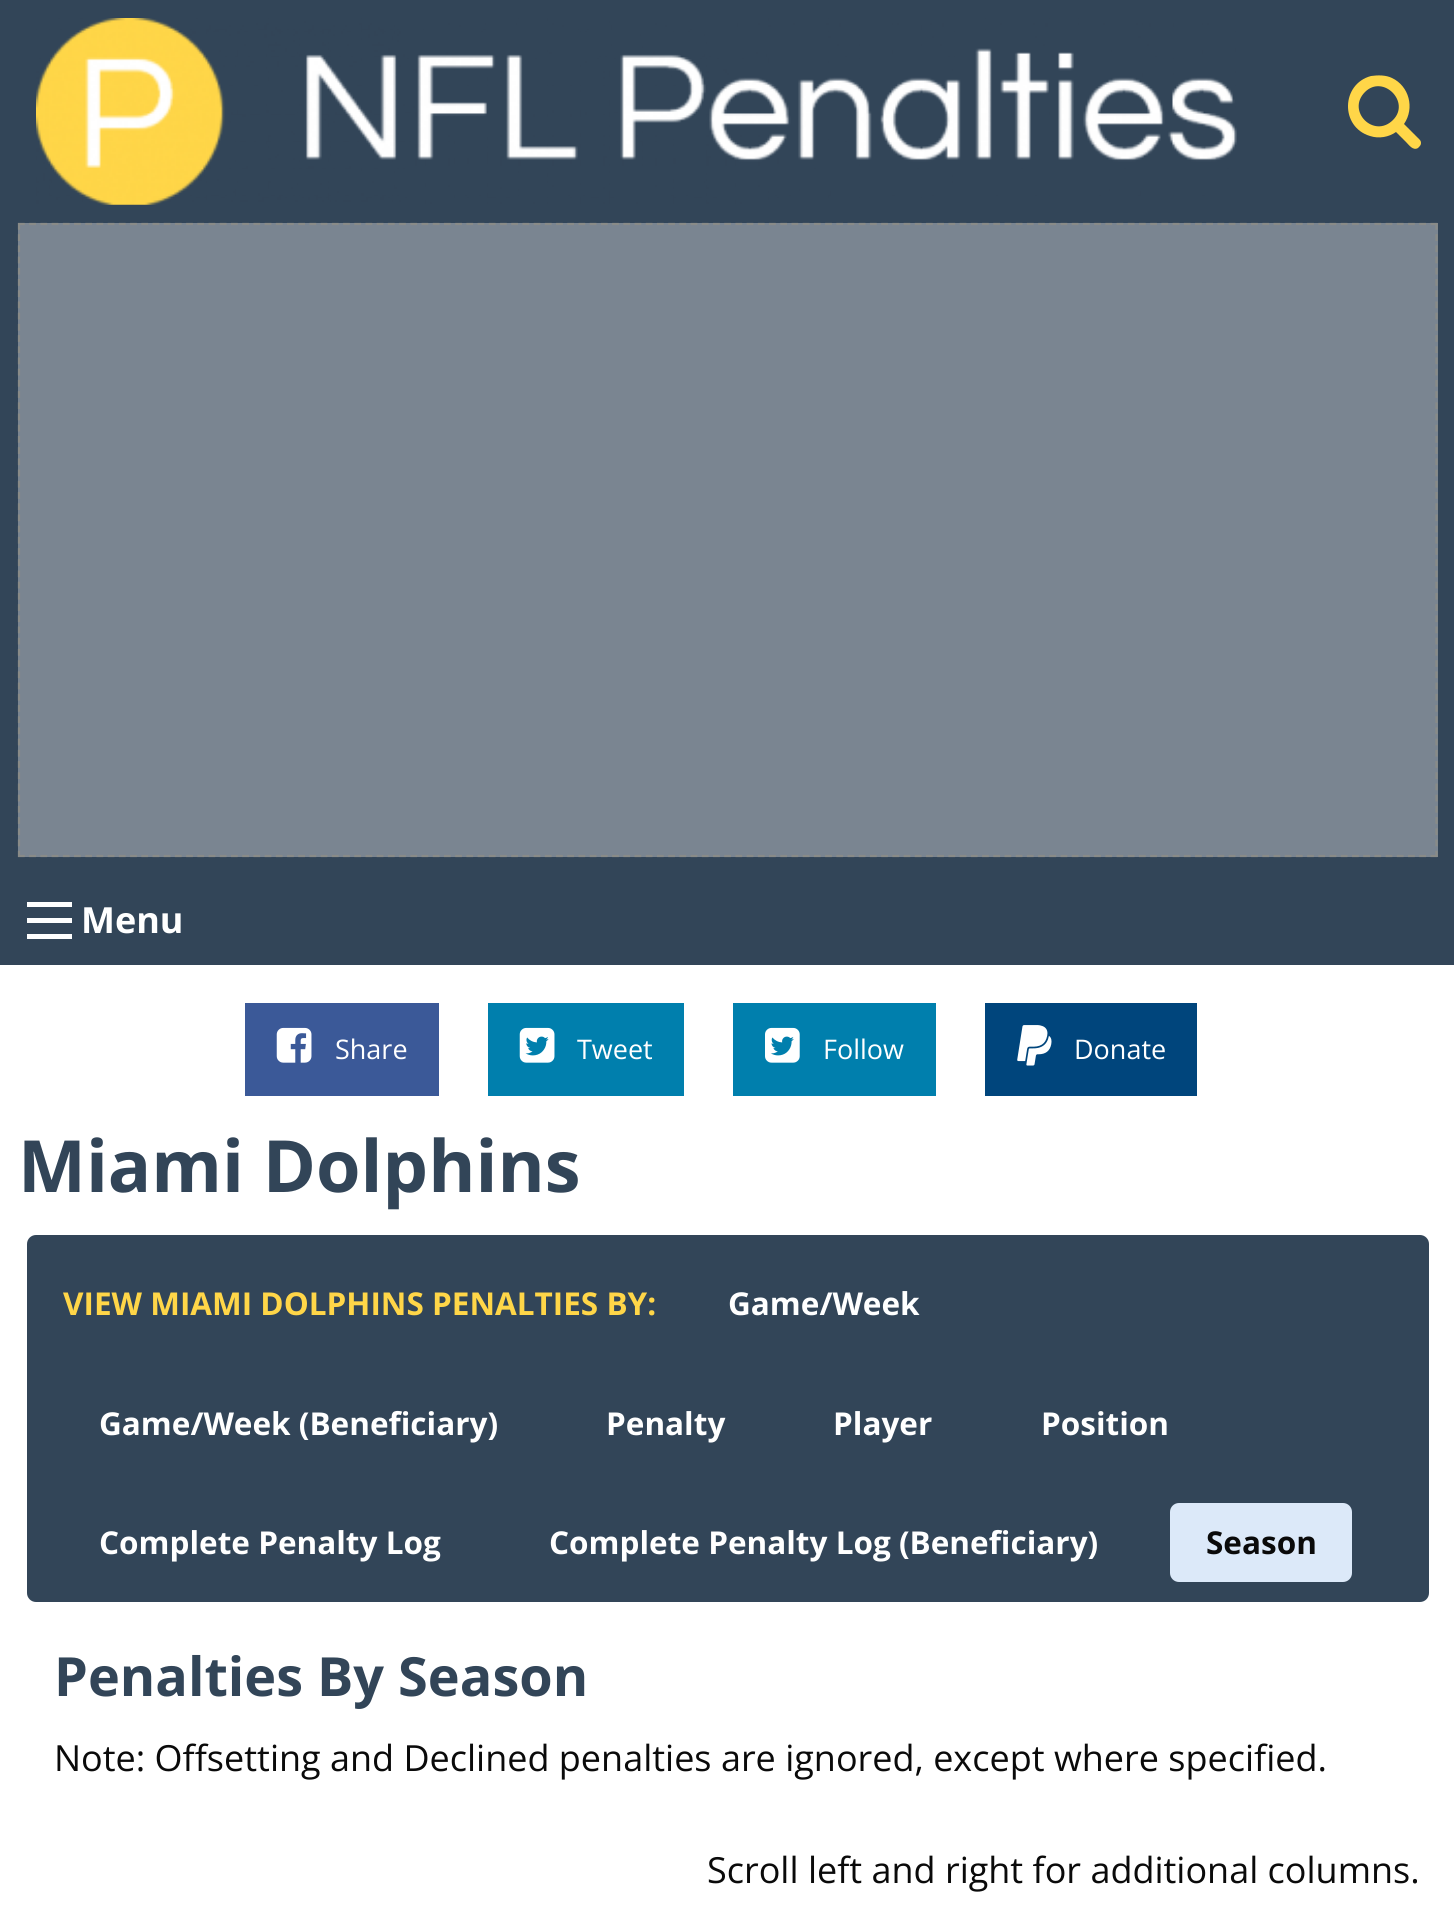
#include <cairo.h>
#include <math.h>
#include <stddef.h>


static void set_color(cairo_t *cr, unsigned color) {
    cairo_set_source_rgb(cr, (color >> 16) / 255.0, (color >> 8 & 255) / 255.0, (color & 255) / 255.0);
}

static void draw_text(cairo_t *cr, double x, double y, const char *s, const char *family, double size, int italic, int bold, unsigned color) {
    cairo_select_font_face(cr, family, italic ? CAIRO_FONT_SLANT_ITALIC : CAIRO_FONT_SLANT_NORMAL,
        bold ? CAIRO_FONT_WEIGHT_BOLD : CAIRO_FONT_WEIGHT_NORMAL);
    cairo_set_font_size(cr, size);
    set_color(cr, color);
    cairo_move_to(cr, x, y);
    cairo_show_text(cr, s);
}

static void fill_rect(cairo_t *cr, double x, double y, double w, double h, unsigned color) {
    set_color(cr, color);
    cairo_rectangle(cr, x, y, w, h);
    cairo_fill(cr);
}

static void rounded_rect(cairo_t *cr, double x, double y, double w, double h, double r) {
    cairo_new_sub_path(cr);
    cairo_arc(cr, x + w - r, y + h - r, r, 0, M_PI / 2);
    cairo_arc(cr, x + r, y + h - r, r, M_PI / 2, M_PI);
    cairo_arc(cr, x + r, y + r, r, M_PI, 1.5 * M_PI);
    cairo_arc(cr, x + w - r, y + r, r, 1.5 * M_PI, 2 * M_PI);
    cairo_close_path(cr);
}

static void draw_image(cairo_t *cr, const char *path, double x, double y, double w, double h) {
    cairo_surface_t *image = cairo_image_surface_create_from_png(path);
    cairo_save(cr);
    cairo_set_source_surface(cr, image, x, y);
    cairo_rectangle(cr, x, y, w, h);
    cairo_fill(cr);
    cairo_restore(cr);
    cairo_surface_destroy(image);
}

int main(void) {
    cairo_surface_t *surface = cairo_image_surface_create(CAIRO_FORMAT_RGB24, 1454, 1909);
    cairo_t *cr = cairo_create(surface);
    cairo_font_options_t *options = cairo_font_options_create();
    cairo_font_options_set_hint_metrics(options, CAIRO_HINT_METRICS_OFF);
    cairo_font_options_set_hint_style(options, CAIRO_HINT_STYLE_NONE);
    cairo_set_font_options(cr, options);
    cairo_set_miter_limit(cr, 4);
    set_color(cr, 0xFFFFFF);
    cairo_paint(cr);
    fill_rect(cr, 0, 0, 1454, 965, 0x324558);
    draw_image(cr, "assets/img1.png", 36, 18, 1201, 187);
    set_color(cr, 0xFFD648);
    cairo_new_path(cr);
    cairo_move_to(cr, 1393, 120);
    cairo_curve_to(cr, 1411, 102, 1383, 74, 1365, 92);
    cairo_curve_to(cr, 1346, 111, 1374, 139, 1393, 120);
    cairo_close_path(cr);
    cairo_move_to(cr, 1421, 143);
    cairo_curve_to(cr, 1421, 145, 1420, 146, 1418, 148);
    cairo_curve_to(cr, 1413, 151, 1409, 145, 1406, 142);
    cairo_line_to(cr, 1396, 132);
    cairo_curve_to(cr, 1389, 137, 1379, 139, 1370, 136);
    cairo_curve_to(cr, 1340, 127, 1341, 84, 1371, 76);
    cairo_curve_to(cr, 1378, 75, 1386, 75, 1392, 78);
    cairo_curve_to(cr, 1409, 86, 1415, 108, 1404, 124);
    cairo_line_to(cr, 1419, 139);
    cairo_curve_to(cr, 1420, 140, 1421, 141, 1421, 143);
    cairo_close_path(cr);
    cairo_fill(cr);
    fill_rect(cr, 18, 223, 1420, 634, 0x7A8591);
    cairo_new_path(cr);
    cairo_move_to(cr, 18, 224);
    cairo_line_to(cr, 1438, 224);
    set_color(cr, 0x898B88);
    cairo_set_line_width(cr, 2.2);
    cairo_set_dash(cr, (double[]){6.75, 4.46}, 2, 0);
    cairo_stroke(cr);
    cairo_new_path(cr);
    cairo_move_to(cr, 1436.5, 223);
    cairo_line_to(cr, 1436.5, 857);
    cairo_stroke(cr);
    cairo_new_path(cr);
    cairo_move_to(cr, 18, 856);
    cairo_line_to(cr, 1438, 856);
    cairo_stroke(cr);
    cairo_new_path(cr);
    cairo_move_to(cr, 19, 223);
    cairo_line_to(cr, 19, 857);
    cairo_stroke(cr);
    fill_rect(cr, 27, 934, 45, 5, 0xFEFEFE);
    fill_rect(cr, 27, 918, 45, 5, 0xFEFEFE);
    fill_rect(cr, 27, 902, 45, 5, 0xFEFEFE);
    draw_text(cr, 81, 933, "Menu", "Open Sans", 36, 0, 1, 0xFFFFFF);
    fill_rect(cr, 245, 1003, 194, 93, 0x3B5998);
    draw_image(cr, "assets/img2.png", 276, 1027, 36, 36);
    draw_text(cr, 335, 1059, "Share", "Open Sans", 27, 0, 0, 0xFFFFFF);
    fill_rect(cr, 488, 1003, 196, 93, 0x007FAD);
    draw_image(cr, "assets/img3.png", 519, 1027, 36, 36);
    draw_text(cr, 577, 1059, "Tweet", "Open Sans", 27, 0, 0, 0xFFFFFF);
    fill_rect(cr, 733, 1003, 203, 93, 0x007FAD);
    draw_image(cr, "assets/img4.png", 765, 1027, 35, 36);
    draw_text(cr, 823, 1059, "Follow", "Open Sans", 27, 0, 0, 0xFFFFFF);
    fill_rect(cr, 985, 1003, 212, 93, 0x00457C);
    draw_image(cr, "assets/img5.png", 1017, 1025, 35, 41);
    draw_text(cr, 1074, 1059, "Donate", "Open Sans", 27, 0, 0, 0xFFFFFF);
    draw_text(cr, 18, 1192, "Miami Dolphins", "Open Sans", 72, 0, 1, 0x324558);
    rounded_rect(cr, 27, 1235, 1402, 367, 9);
    cairo_fill(cr);
    draw_text(cr, 63, 1315, "VIEW MIAMI DOLPHINS PENALTIES BY:", "Open Sans", 31.5, 0, 1, 0xFFD648);
    draw_text(cr, 728, 1315, "Game/Week", "Open Sans", 31.5, 0, 1, 0xFFFFFF);
    draw_text(cr, 99, 1435, "Game/Week (Beneficiary)", "Open Sans", 31.5, 0, 1, 0xFFFFFF);
    draw_text(cr, 606, 1435, "Penalty", "Open Sans", 31.5, 0, 1, 0xFFFFFF);
    draw_text(cr, 833, 1435, "Player", "Open Sans", 31.5, 0, 1, 0xFFFFFF);
    draw_text(cr, 1041, 1435, "Position", "Open Sans", 31.5, 0, 1, 0xFFFFFF);
    draw_text(cr, 99, 1554, "Complete Penalty Log", "Open Sans", 31.5, 0, 1, 0xFFFFFF);
    draw_text(cr, 549, 1554, "Complete Penalty Log (Beneficiary)", "Open Sans", 31.5, 0, 1, 0xFFFFFF);
    set_color(cr, 0xDCE9F9);
    rounded_rect(cr, 1170, 1503, 182, 79, 9);
    cairo_fill(cr);
    draw_text(cr, 1206, 1554, "Season", "Open Sans", 31.5, 0, 1, 0x0A0A0A);
    draw_text(cr, 54, 1696, "Penalties By Season", "Open Sans", 54, 0, 1, 0x324558);
    draw_text(cr, 54, 1771, "Note: Offsetting and Declined penalties are ignored, except where specified.", "Open Sans", 36, 0, 0, 0x0A0A0A);
    draw_text(cr, 707, 1883, "Scroll left and right for additional columns.", "Open Sans", 36, 0, 0, 0x0A0A0A);
    cairo_surface_write_to_png(surface, "output.png");
    cairo_font_options_destroy(options);
    cairo_destroy(cr);
    cairo_surface_destroy(surface);
    return 0;
}
